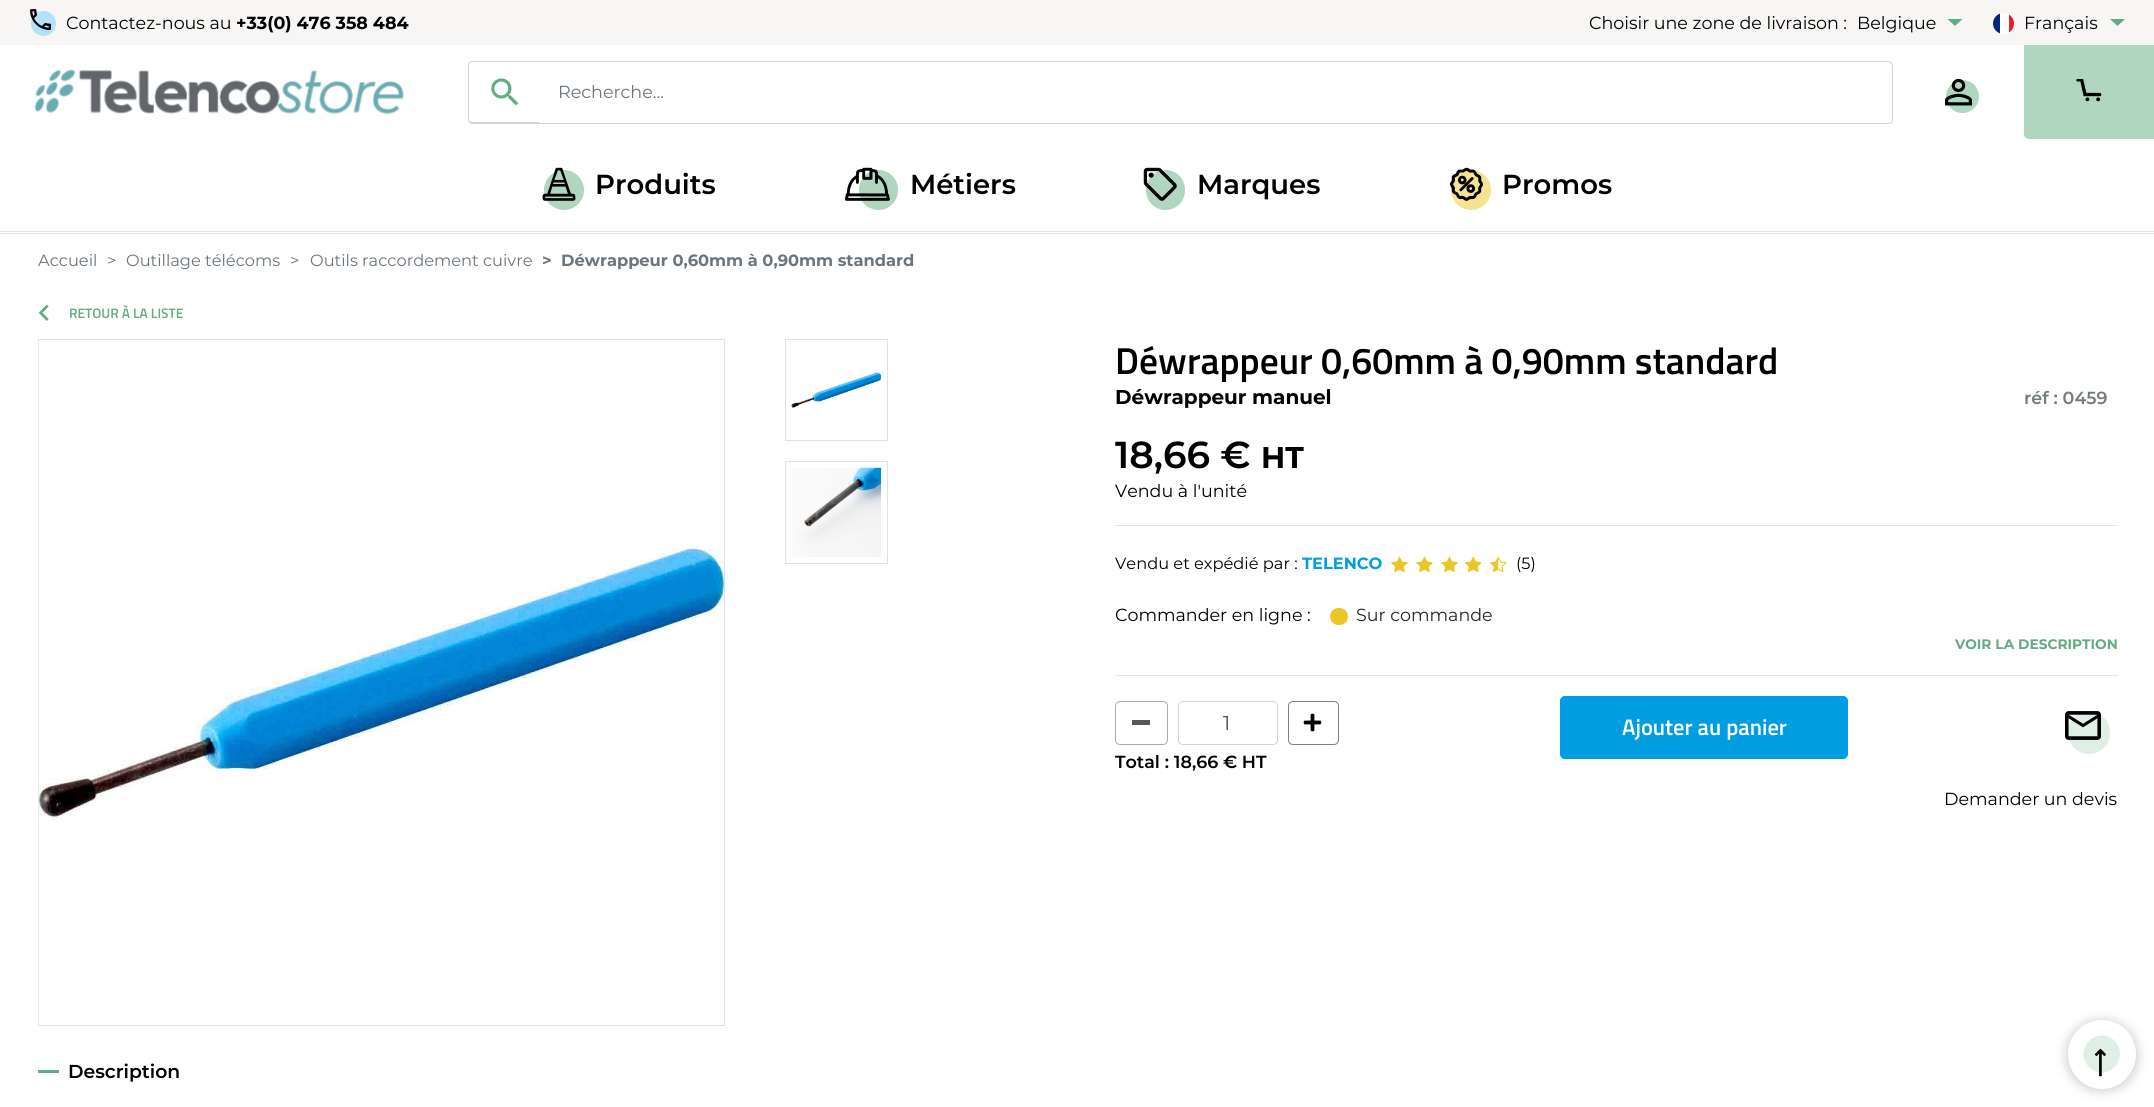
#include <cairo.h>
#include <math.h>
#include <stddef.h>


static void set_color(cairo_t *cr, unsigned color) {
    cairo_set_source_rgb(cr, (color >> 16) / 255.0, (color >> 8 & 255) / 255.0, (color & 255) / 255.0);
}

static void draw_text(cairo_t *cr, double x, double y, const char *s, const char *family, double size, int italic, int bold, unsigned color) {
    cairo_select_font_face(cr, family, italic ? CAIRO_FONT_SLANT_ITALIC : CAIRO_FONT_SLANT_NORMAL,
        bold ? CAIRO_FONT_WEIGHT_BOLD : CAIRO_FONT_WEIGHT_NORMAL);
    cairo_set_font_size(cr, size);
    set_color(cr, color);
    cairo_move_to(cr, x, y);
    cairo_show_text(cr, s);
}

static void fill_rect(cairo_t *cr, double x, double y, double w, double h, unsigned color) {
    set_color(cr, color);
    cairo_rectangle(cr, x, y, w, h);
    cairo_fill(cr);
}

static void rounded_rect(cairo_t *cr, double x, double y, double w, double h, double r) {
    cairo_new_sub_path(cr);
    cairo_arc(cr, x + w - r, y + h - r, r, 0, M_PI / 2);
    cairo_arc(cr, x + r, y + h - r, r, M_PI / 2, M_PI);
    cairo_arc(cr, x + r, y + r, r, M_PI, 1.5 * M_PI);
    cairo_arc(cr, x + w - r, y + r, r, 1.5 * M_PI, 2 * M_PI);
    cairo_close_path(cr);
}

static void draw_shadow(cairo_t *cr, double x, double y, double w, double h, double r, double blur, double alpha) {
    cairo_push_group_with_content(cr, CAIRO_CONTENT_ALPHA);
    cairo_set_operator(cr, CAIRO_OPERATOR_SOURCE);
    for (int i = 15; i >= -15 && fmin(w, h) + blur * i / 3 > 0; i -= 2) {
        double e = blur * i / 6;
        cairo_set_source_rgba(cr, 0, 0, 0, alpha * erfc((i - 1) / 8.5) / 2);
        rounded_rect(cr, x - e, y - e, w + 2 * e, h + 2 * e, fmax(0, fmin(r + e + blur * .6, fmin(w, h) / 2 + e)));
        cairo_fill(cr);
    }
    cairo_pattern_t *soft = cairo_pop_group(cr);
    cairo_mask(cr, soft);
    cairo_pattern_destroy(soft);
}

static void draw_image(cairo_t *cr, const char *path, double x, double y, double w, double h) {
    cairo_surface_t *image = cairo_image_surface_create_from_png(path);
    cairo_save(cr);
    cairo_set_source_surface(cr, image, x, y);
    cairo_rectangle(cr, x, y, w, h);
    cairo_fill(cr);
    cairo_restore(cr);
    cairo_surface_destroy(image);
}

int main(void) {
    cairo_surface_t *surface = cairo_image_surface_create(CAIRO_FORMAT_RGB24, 2154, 1107);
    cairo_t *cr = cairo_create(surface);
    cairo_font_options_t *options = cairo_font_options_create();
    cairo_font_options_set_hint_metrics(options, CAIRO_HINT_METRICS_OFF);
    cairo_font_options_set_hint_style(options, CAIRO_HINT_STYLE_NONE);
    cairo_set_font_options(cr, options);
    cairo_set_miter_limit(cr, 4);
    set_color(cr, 0xFFFFFF);
    cairo_paint(cr);
    fill_rect(cr, 0, 0, 2154, 45, 0xF7F6F5);
    set_color(cr, 0xB3E2F6);
    cairo_arc(cr, 43.5, 23.5, 12.5, 0, 2 * M_PI);
    cairo_fill(cr);
    draw_image(cr, "assets/img1.png", 30, 9, 21, 22);
    draw_text(cr, 66, 29, "Contactez-nous au", "Montserrat", 17.5, 0, 0, 0x000000);
    draw_text(cr, 236, 29, "+33(0) 476 358 484", "Montserrat", 17.5, 0, 1, 0x000000);
    draw_text(cr, 1589, 29, "Choisir une zone de livraison :", "Montserrat", 17.5, 0, 0, 0x000000);
    draw_text(cr, 1857, 29, "Belgique", "Montserrat", 17.5, 0, 0, 0x000000);
    set_color(cr, 0x61AC81);
    cairo_new_path(cr);
    cairo_move_to(cr, 1947.5, 19);
    cairo_line_to(cr, 1962.5, 19);
    cairo_line_to(cr, 1955, 26);
    cairo_close_path(cr);
    cairo_fill(cr);
    set_color(cr, 0xFFFFFF);
    cairo_arc(cr, 2003.5, 23.5, 10.5, 0, 2 * M_PI);
    cairo_fill(cr);
    cairo_save(cr);
    rounded_rect(cr, 1993, 13, 21, 21, 10.5);
    cairo_clip(cr);
    fill_rect(cr, 1993, 13, 7, 21, 0x00267F);
    fill_rect(cr, 2009, 13, 5, 21, 0xF31830);
    cairo_restore(cr);
    draw_text(cr, 2024, 29, "Français", "Montserrat", 17.5, 0, 0, 0x000000);
    set_color(cr, 0x61AC81);
    cairo_new_path(cr);
    cairo_move_to(cr, 2110, 19);
    cairo_line_to(cr, 2125, 19);
    cairo_line_to(cr, 2117.5, 26);
    cairo_close_path(cr);
    cairo_fill(cr);
    draw_image(cr, "assets/img2.png", 34, 69, 370, 46);
    cairo_new_path(cr);
    cairo_move_to(cr, 539.5, 61.5);
    cairo_line_to(cr, 1888, 61.5);
    cairo_curve_to(cr, 1890.5, 61.5, 1892.5, 63.5, 1892.5, 66);
    cairo_line_to(cr, 1892.5, 119);
    cairo_curve_to(cr, 1892.5, 121.5, 1890.5, 123.5, 1888, 123.5);
    cairo_line_to(cr, 539.5, 123.5);
    cairo_close_path(cr);
    set_color(cr, 0xD5D3CC);
    cairo_set_line_width(cr, 1);
    cairo_stroke(cr);
    set_color(cr, 0xFFFFFF);
    cairo_new_path(cr);
    cairo_move_to(cr, 473, 61);
    cairo_line_to(cr, 540, 61);
    cairo_line_to(cr, 540, 124);
    cairo_line_to(cr, 473, 124);
    cairo_curve_to(cr, 470, 124, 468, 122, 468, 119);
    cairo_line_to(cr, 468, 66);
    cairo_curve_to(cr, 468, 63, 470, 61, 473, 61);
    cairo_close_path(cr);
    cairo_fill(cr);
    set_color(cr, 0xD5D3CC);
    cairo_set_fill_rule(cr, CAIRO_FILL_RULE_EVEN_ODD);
    cairo_new_path(cr);
    cairo_move_to(cr, 472, 61);
    cairo_line_to(cr, 540, 61);
    cairo_line_to(cr, 540, 124);
    cairo_line_to(cr, 472, 124);
    cairo_curve_to(cr, 470, 124, 468, 122, 468, 119);
    cairo_line_to(cr, 468, 66);
    cairo_curve_to(cr, 468, 63, 470, 61, 472, 61);
    cairo_close_path(cr);
    cairo_move_to(cr, 472, 62);
    cairo_line_to(cr, 540, 62);
    cairo_line_to(cr, 540, 122);
    cairo_line_to(cr, 472, 122);
    cairo_curve_to(cr, 470, 122, 469, 121, 469, 119);
    cairo_line_to(cr, 469, 66);
    cairo_curve_to(cr, 469, 64, 470, 62, 472, 62);
    cairo_close_path(cr);
    cairo_fill(cr);
    draw_image(cr, "assets/img3.png", 491, 78, 28, 28);
    draw_text(cr, 558, 98, "Recherche...", "Montserrat", 17.5, 0, 0, 0x6C757D);
    set_color(cr, 0xB0D6C0);
    cairo_new_path(cr);
    cairo_arc(cr, 1962.5, 96.5, 16.5, 0, 2 * M_PI);
    cairo_fill(cr);
    draw_image(cr, "assets/img4.png", 1945, 78, 27, 28);
    cairo_new_path(cr);
    cairo_move_to(cr, 2024.5, 45.5);
    cairo_line_to(cr, 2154.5, 45.5);
    cairo_line_to(cr, 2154.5, 138.5);
    cairo_line_to(cr, 2029, 138.5);
    cairo_curve_to(cr, 2026.5, 138.5, 2024.5, 136.5, 2024.5, 134);
    cairo_close_path(cr);
    cairo_fill_preserve(cr);
    cairo_stroke(cr);
    draw_image(cr, "assets/img5.png", 2076, 79, 26, 23);
    fill_rect(cr, 0, 231, 2154, 1, 0xE6E5E0);
    set_color(cr, 0xB0D6C0);
    cairo_arc(cr, 564, 190, 20, 0, 2 * M_PI);
    cairo_fill(cr);
    draw_image(cr, "assets/img6.png", 542, 167, 34, 34);
    draw_text(cr, 595, 194, "Produits", "Montserrat SemiBold", 27.5, 0, 0, 0x000000);
    set_color(cr, 0xB0D6C0);
    rounded_rect(cr, 859, 170, 39, 40, 19.5);
    cairo_fill(cr);
    draw_image(cr, "assets/img7.png", 845, 167, 45, 34);
    draw_text(cr, 910, 194, "Métiers", "Montserrat SemiBold", 27.5, 0, 0, 0x000000);
    set_color(cr, 0xB0D6C0);
    rounded_rect(cr, 1146, 170, 39, 40, 19.5);
    cairo_fill(cr);
    draw_image(cr, "assets/img8.png", 1143, 167, 34, 34);
    draw_text(cr, 1197, 194, "Marques", "Montserrat SemiBold", 27.5, 0, 0, 0x000000);
    set_color(cr, 0xF6E392);
    cairo_new_path(cr);
    cairo_arc(cr, 1471, 190, 20, 0, 2 * M_PI);
    cairo_fill(cr);
    draw_image(cr, "assets/img9.png", 1450, 167, 33, 34);
    draw_text(cr, 1502, 194, "Promos", "Montserrat SemiBold", 27.5, 0, 0, 0x000000);
    fill_rect(cr, 0, 233, 2154, 1, 0xDEE2E6);
    draw_text(cr, 38, 266, "Accueil", "Montserrat", 16.25, 0, 0, 0x6C757D);
    draw_text(cr, 107, 266, ">", "Montserrat", 16.25, 0, 0, 0x6C757D);
    draw_text(cr, 126, 266, "Outillage télécoms", "Montserrat", 16.25, 0, 0, 0x6C757D);
    draw_text(cr, 290, 266, ">", "Montserrat", 16.25, 0, 0, 0x6C757D);
    draw_text(cr, 310, 266, "Outils raccordement cuivre", "Montserrat", 16.25, 0, 0, 0x6C757D);
    draw_text(cr, 542, 266, ">", "Montserrat", 16.25, 0, 1, 0x6C757D);
    draw_text(cr, 561, 266, "Déwrappeur 0,60mm à 0,90mm standard", "Montserrat", 16.25, 0, 1, 0x6C757D);
    draw_image(cr, "assets/img10.png", 38, 304, 11, 17);
    draw_text(cr, 69, 318, "RETOUR À LA LISTE", "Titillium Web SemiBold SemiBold", 13.75, 0, 0, 0x61AC81);
    cairo_rectangle(cr, 38.5, 339.5, 686, 686);
    set_color(cr, 0xDEE2E6);
    cairo_stroke(cr);
    draw_image(cr, "assets/img11.png", 38, 340, 686, 685);
    cairo_rectangle(cr, 785.5, 339.5, 102, 101);
    cairo_stroke(cr);
    draw_image(cr, "assets/img12.png", 791, 372, 91, 36);
    cairo_rectangle(cr, 785.5, 461.5, 102, 102);
    cairo_stroke(cr);
    draw_image(cr, "assets/img13.png", 792, 467, 90, 90);
    draw_text(cr, 1115, 374, "Déwrappeur 0,60mm à 0,90mm standard", "Titillium Web SemiBold SemiBold", 37.5, 0, 0, 0x000000);
    draw_text(cr, 1115, 404, "Déwrappeur manuel", "Montserrat", 20, 0, 1, 0x000000);
    draw_text(cr, 2024, 404, "réf : 0459", "Montserrat SemiBold", 17.5, 0, 0, 0x747B7D);
    draw_text(cr, 1115, 468, "18,66 €", "Montserrat SemiBold", 37.5, 0, 0, 0x000000);
    draw_text(cr, 1261, 468, "HT", "Montserrat", 30, 0, 1, 0x000000);
    draw_text(cr, 1115, 497, "Vendu à l'unité", "Montserrat", 17.5, 0, 0, 0x000000);
    fill_rect(cr, 1115, 525, 1003, 1, 0xE6E6E6);
    draw_text(cr, 1115, 569, "Vendu et expédié par :", "Montserrat", 16.25, 0, 0, 0x000000);
    draw_text(cr, 1302, 569, "TELENCO", "Montserrat", 16.25, 0, 1, 0x009DE0);
    draw_image(cr, "assets/img14.png", 1391, 556, 17, 17);
    draw_image(cr, "assets/img14.png", 1416, 556, 17, 17);
    draw_image(cr, "assets/img14.png", 1441, 556, 17, 17);
    draw_image(cr, "assets/img15.png", 1465, 556, 17, 17);
    draw_image(cr, "assets/img16.png", 1490, 556, 17, 17);
    draw_text(cr, 1516, 569, "(5)", "Montserrat", 16.25, 0, 0, 0x000000);
    draw_text(cr, 1115, 621, "Commander en ligne :", "Montserrat", 17.5, 0, 0, 0x000000);
    set_color(cr, 0xECC625);
    rounded_rect(cr, 1330, 608, 18, 17, 8.5);
    cairo_fill(cr);
    draw_text(cr, 1356, 621, "Sur commande", "Montserrat", 17.5, 0, 0, 0x212529);
    draw_text(cr, 1955, 649, "VOIR LA DESCRIPTION", "Montserrat", 13.75, 0, 1, 0x61AC81);
    fill_rect(cr, 1115, 675, 1003, 1, 0xE6E6E6);
    rounded_rect(cr, 1115.5, 701.5, 52, 43, 4.5);
    set_color(cr, 0xACACAC);
    cairo_stroke(cr);
    fill_rect(cr, 1132, 720, 18, 5, 0x595959);
    rounded_rect(cr, 1178.5, 701.5, 99, 43, 4.5);
    set_color(cr, 0xD5D3CC);
    cairo_stroke(cr);
    draw_text(cr, 1223, 730, "1", "Montserrat", 20, 0, 0, 0x495057);
    rounded_rect(cr, 1288.5, 701.5, 50, 43, 4.5);
    set_color(cr, 0x808080);
    cairo_stroke(cr);
    draw_image(cr, "assets/img17.png", 1303, 713, 19, 19);
    draw_text(cr, 1115, 768, "Total : 18,66 € HT", "Montserrat SemiBold", 17.5, 0, 0, 0x000000);
    set_color(cr, 0x009DE0);
    rounded_rect(cr, 1560.5, 696.5, 287, 62, 4.5);
    cairo_fill_preserve(cr);
    cairo_stroke(cr);
    draw_text(cr, 1622, 735, "Ajouter au panier", "Titillium Web SemiBold SemiBold", 22.5, 0, 0, 0xFFFFFF);
    set_color(cr, 0xDFEFE6);
    rounded_rect(cr, 2068, 711, 42, 43, 21);
    cairo_fill(cr);
    draw_image(cr, "assets/img18.png", 2065, 711, 36, 29);
    draw_text(cr, 1944, 805, "Demander un devis", "Montserrat", 17.5, 0, 0, 0x000000);
    fill_rect(cr, 38, 1070, 21, 3, 0x61AC81);
    draw_text(cr, 68, 1078, "Description", "Montserrat SemiBold", 18.75, 0, 0, 0x000000);
    set_color(cr, 0x000000);
    draw_shadow(cr, 2066, 1020, 72, 71, 35.5, 5.5, 0.19);
    set_color(cr, 0xFFFFFF);
    cairo_set_fill_rule(cr, CAIRO_FILL_RULE_WINDING);
    cairo_new_path(cr);
    cairo_move_to(cr, 2068, 1054);
    cairo_curve_to(cr, 2068, 1035, 2083, 1020, 2102, 1020);
    cairo_curve_to(cr, 2121, 1020, 2136, 1035, 2136, 1054);
    cairo_curve_to(cr, 2136, 1073, 2121, 1089, 2102, 1089);
    cairo_curve_to(cr, 2083, 1089, 2068, 1073, 2068, 1054);
    cairo_close_path(cr);
    cairo_fill(cr);
    set_color(cr, 0xDFEFE6);
    cairo_new_path(cr);
    cairo_move_to(cr, 2083.5, 1054);
    cairo_curve_to(cr, 2083.5, 1044, 2092, 1035.5, 2102, 1035.5);
    cairo_curve_to(cr, 2112, 1035.5, 2120, 1044, 2120, 1054);
    cairo_curve_to(cr, 2120, 1064, 2112, 1072.5, 2102, 1072.5);
    cairo_curve_to(cr, 2092, 1072.5, 2083.5, 1064, 2083.5, 1054);
    cairo_close_path(cr);
    cairo_fill(cr);
    draw_image(cr, "assets/img19.png", 2094, 1048, 12, 29);
    cairo_surface_write_to_png(surface, "output.png");
    cairo_font_options_destroy(options);
    cairo_destroy(cr);
    cairo_surface_destroy(surface);
    return 0;
}
